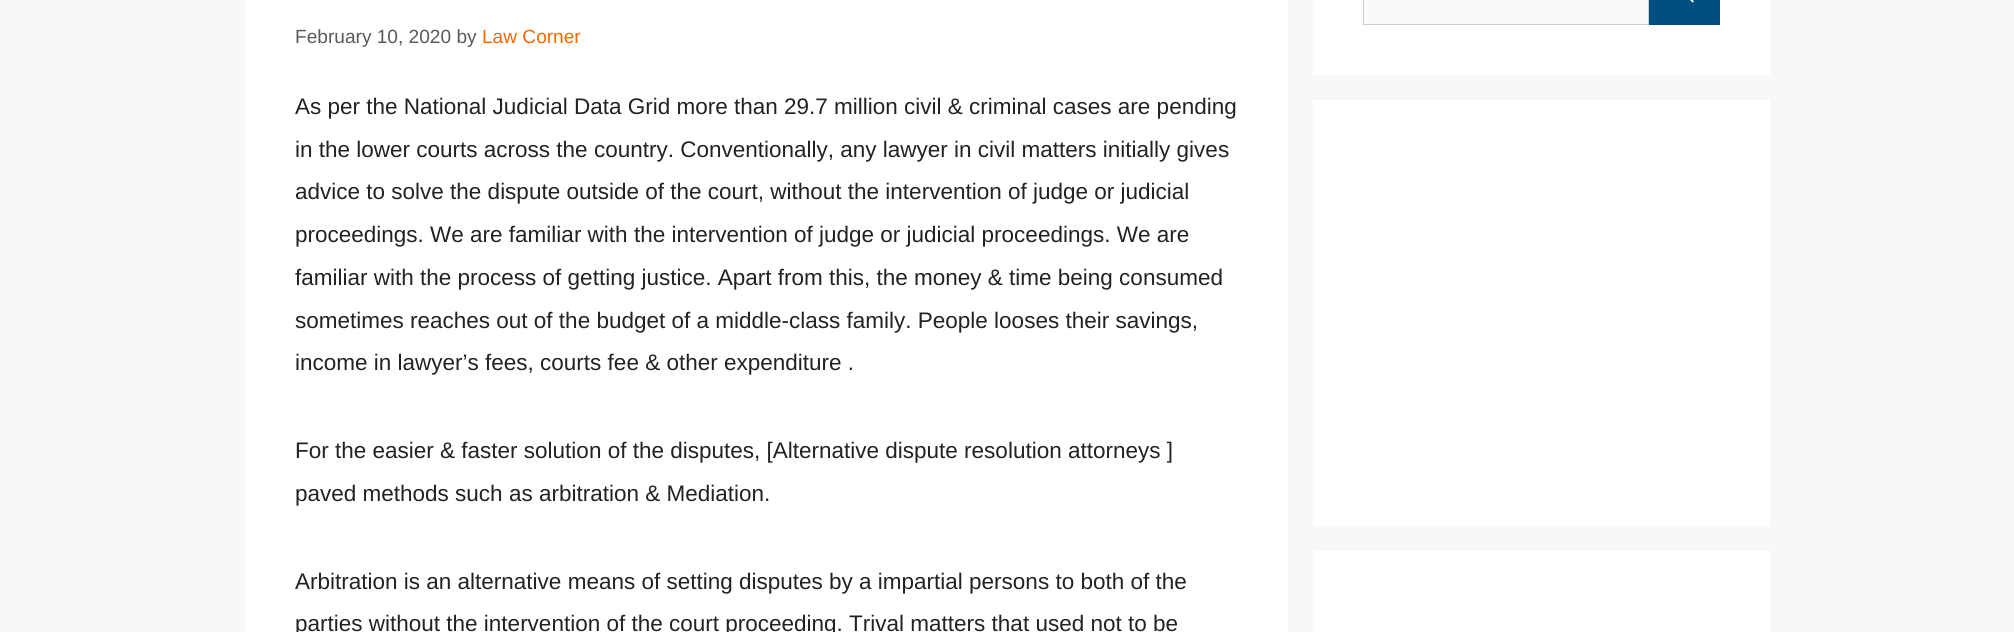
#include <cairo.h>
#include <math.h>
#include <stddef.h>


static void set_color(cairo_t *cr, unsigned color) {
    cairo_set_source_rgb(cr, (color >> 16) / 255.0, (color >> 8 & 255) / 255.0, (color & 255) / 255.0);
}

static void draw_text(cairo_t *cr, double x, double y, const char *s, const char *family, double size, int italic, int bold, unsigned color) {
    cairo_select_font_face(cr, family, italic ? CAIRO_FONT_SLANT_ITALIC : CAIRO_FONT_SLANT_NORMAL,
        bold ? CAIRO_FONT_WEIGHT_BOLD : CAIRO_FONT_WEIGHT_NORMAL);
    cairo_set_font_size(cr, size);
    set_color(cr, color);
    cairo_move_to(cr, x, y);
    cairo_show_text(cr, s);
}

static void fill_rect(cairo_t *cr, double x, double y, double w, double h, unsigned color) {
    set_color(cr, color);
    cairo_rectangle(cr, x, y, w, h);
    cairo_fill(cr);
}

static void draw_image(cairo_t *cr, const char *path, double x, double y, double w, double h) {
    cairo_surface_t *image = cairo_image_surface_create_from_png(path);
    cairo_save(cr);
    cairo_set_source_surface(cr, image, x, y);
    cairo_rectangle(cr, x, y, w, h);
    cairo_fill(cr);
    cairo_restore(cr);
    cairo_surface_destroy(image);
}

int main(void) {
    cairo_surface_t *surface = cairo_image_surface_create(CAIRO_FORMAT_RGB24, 2014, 632);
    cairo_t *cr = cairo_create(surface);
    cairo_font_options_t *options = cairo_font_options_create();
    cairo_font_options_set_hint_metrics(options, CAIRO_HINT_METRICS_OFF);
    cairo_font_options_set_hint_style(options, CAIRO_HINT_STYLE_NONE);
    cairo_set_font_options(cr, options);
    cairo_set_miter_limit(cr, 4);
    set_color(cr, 0xF7F8F9);
    cairo_paint(cr);
    fill_rect(cr, 245, 0, 1043, 632, 0xFFFFFF);
    draw_text(cr, 295, 43, "February 10, 2020 by", "Liberation Sans", 19.1, 0, 0, 0x595959);
    draw_text(cr, 482, 43, "Law Corner", "Liberation Sans", 19.1, 0, 0, 0xFF6600);
    draw_text(cr, 295, 114, "As per the National Judicial Data Grid more than 29.7 million civil & criminal cases are pending", "Liberation Sans", 22.5, 0, 0, 0x222222);
    draw_text(cr, 295, 157, "in the lower courts across the country. Conventionally, any lawyer in civil matters initially gives", "Liberation Sans", 22.5, 0, 0, 0x222222);
    draw_text(cr, 295, 199, "advice to solve the dispute outside of the court, without the intervention of judge or judicial", "Liberation Sans", 22.5, 0, 0, 0x222222);
    draw_text(cr, 295, 242, "proceedings. We are familiar with the intervention of judge or judicial proceedings. We are", "Liberation Sans", 22.5, 0, 0, 0x222222);
    draw_text(cr, 295, 285, "familiar with the process of getting justice. Apart from this, the money & time being consumed", "Liberation Sans", 22.5, 0, 0, 0x222222);
    draw_text(cr, 295, 328, "sometimes reaches out of the budget of a middle-class family. People looses their savings,", "Liberation Sans", 22.5, 0, 0, 0x222222);
    draw_text(cr, 295, 370, "income in lawyer’s fees, courts fee & other expenditure .", "Liberation Sans", 22.5, 0, 0, 0x222222);
    draw_text(cr, 295, 458, "For the easier & faster solution of the disputes, [Alternative dispute resolution attorneys ]", "Liberation Sans", 22.5, 0, 0, 0x222222);
    draw_text(cr, 295, 501, "paved methods such as arbitration & Mediation.", "Liberation Sans", 22.5, 0, 0, 0x222222);
    draw_text(cr, 295, 589, "Arbitration is an alternative means of setting disputes by a impartial persons to both of the", "Liberation Sans", 22.5, 0, 0, 0x222222);
    draw_text(cr, 295, 631, "parties without the intervention of the court proceeding. Trival matters that used not to be", "Liberation Sans", 22.5, 0, 0, 0x222222);
    fill_rect(cr, 1313, 0, 457, 75, 0xFFFFFF);
    set_color(cr, 0xFAFAFA);
    cairo_rectangle(cr, 1363.5, -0.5, 285, 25);
    cairo_fill_preserve(cr);
    set_color(cr, 0xCCCCCC);
    cairo_set_line_width(cr, 1);
    cairo_stroke(cr);
    fill_rect(cr, 1649, 0, 71, 25, 0x014E82);
    draw_image(cr, "assets/img1.png", 1690, 0, 4, 3);
    fill_rect(cr, 1313, 100, 457, 426, 0xFFFFFF);
    fill_rect(cr, 1313, 551, 457, 81, 0xFFFFFF);
    cairo_surface_write_to_png(surface, "output.png");
    cairo_font_options_destroy(options);
    cairo_destroy(cr);
    cairo_surface_destroy(surface);
    return 0;
}
